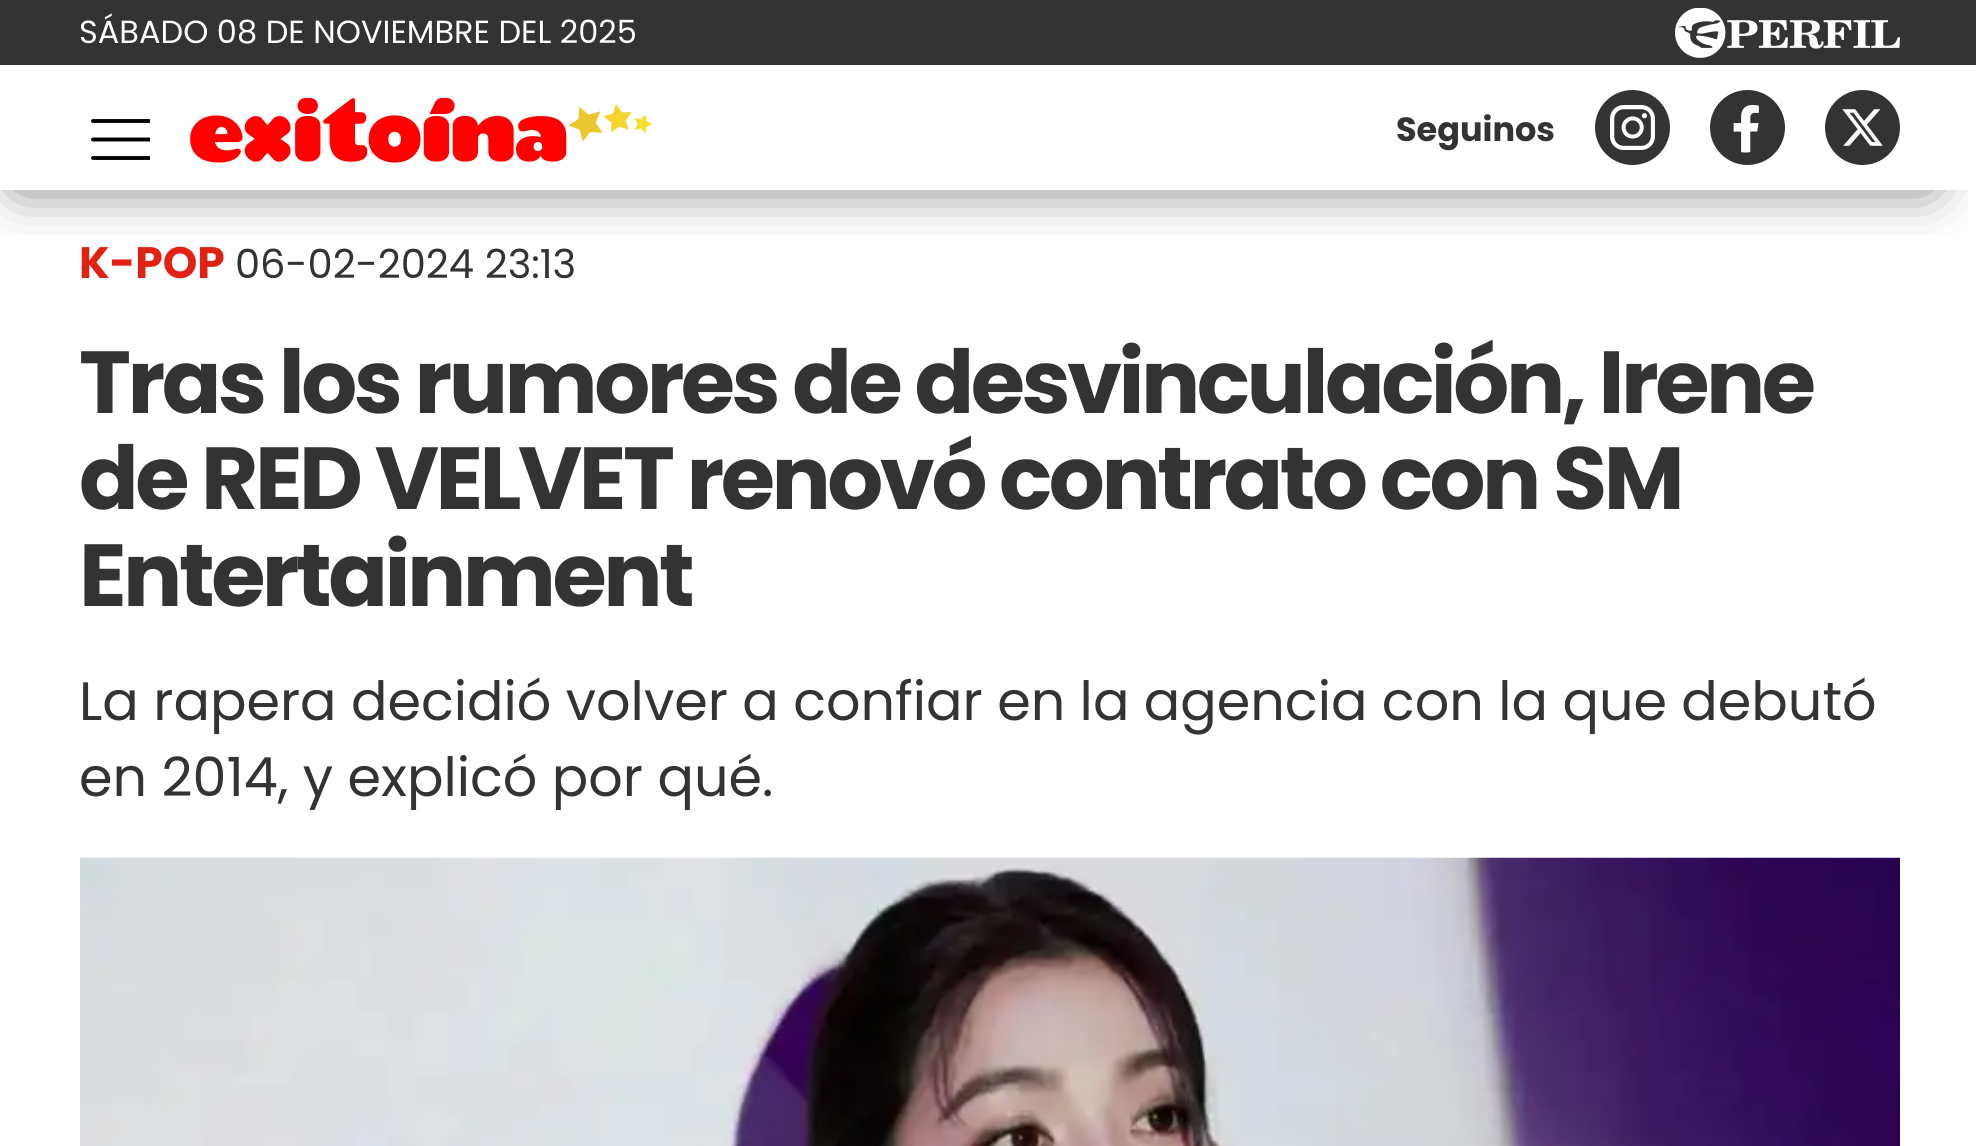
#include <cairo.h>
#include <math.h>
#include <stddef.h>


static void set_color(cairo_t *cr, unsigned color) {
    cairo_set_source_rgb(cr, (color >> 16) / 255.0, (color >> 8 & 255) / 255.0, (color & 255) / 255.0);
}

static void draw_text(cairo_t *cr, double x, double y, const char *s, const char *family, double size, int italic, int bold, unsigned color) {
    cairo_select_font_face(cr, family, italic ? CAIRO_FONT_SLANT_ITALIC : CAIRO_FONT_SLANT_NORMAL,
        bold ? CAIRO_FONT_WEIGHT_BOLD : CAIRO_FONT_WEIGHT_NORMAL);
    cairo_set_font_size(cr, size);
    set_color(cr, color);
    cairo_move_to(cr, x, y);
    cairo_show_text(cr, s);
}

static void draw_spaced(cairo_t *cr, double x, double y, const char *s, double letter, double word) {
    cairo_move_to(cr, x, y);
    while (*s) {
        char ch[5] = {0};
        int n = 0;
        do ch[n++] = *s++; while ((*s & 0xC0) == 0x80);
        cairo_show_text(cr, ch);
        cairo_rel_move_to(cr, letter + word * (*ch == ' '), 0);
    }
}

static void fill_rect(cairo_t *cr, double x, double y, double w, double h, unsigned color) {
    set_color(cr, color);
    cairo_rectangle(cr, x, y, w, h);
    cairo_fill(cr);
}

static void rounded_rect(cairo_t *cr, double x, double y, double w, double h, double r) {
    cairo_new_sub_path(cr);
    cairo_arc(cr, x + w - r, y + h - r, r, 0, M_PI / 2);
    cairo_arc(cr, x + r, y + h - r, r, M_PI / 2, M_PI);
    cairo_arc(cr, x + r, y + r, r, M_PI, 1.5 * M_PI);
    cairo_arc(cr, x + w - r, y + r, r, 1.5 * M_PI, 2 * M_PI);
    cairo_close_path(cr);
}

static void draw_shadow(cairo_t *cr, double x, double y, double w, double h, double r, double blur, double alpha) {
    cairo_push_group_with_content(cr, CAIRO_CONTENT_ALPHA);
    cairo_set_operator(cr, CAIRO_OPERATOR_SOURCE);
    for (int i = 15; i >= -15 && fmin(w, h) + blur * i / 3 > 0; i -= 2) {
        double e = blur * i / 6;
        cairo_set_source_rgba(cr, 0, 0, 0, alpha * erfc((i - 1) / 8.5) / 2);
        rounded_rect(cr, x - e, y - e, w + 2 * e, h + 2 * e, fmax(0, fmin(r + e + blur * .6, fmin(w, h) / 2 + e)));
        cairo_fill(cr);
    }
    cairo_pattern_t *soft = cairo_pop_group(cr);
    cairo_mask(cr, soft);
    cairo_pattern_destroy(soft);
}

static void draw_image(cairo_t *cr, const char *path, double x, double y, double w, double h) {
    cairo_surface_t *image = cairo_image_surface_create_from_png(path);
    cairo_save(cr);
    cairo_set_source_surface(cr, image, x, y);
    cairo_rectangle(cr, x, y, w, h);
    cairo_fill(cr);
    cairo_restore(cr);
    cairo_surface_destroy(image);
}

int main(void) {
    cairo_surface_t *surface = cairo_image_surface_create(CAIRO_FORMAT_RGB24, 1976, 1146);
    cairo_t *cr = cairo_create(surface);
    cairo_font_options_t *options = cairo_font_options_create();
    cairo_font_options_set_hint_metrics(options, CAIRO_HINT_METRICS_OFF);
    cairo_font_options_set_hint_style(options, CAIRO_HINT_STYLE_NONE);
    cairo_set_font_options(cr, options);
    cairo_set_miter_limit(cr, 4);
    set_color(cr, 0xFFFFFF);
    cairo_paint(cr);
    fill_rect(cr, 0, 0, 1976, 65, 0x333333);
    draw_text(cr, 79, 43, "SÁBADO 08 DE NOVIEMBRE DEL 2025", "Poppins", 32, 0, 0, 0xFFFFFF);
    draw_image(cr, "assets/img1.png", 1675, 8, 225, 50);
    cairo_save(cr);
    cairo_rectangle(cr, 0, 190, 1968, 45);
    cairo_clip(cr);
    set_color(cr, 0x000000);
    draw_shadow(cr, 18, 125, 1912, 60, 0, 27.5, 0.58);
    cairo_restore(cr);
    cairo_save(cr);
    cairo_rectangle(cr, 80, 98, 70, 70);
    cairo_clip(cr);
    cairo_new_path(cr);
    cairo_move_to(cr, 93, 121);
    cairo_line_to(cr, 151, 121);
    cairo_move_to(cr, 93, 139.5);
    cairo_line_to(cr, 151, 139.5);
    cairo_move_to(cr, 93, 158);
    cairo_line_to(cr, 151, 158);
    set_color(cr, 0x000000);
    cairo_set_line_width(cr, 3.9);
    cairo_set_line_cap(cr, CAIRO_LINE_CAP_ROUND);
    cairo_set_line_join(cr, CAIRO_LINE_JOIN_ROUND);
    cairo_stroke(cr);
    cairo_restore(cr);
    draw_image(cr, "assets/img2.png", 190, 98, 463, 65);
    draw_text(cr, 1396, 141, "Seguinos", "Poppins", 33.5, 0, 1, 0x333333);
    cairo_new_path(cr);
    cairo_arc(cr, 1632.5, 127.5, 37.5, 0, 2 * M_PI);
    cairo_fill(cr);
    draw_image(cr, "assets/img3.png", 1610, 105, 45, 45);
    cairo_arc(cr, 1747.5, 127.5, 37.5, 0, 2 * M_PI);
    cairo_fill(cr);
    draw_image(cr, "assets/img4.png", 1733, 105, 26, 48);
    cairo_arc(cr, 1862.5, 127.5, 37.5, 0, 2 * M_PI);
    cairo_fill(cr);
    draw_image(cr, "assets/img5.png", 1842, 109, 41, 37);
    draw_text(cr, 79, 278, "K-POP", "Poppins", 44, 0, 1, 0xE12111);
    draw_text(cr, 235, 278, "06-02-2024 23:13", "Poppins", 40, 0, 0, 0x333333);
    cairo_select_font_face(cr, "Poppins", CAIRO_FONT_SLANT_NORMAL, CAIRO_FONT_WEIGHT_BOLD);
    cairo_set_font_size(cr, 88);
    draw_spaced(cr, 79, 413, "Tras los rumores de desvinculación, Irene", -3.5, 0);
    draw_spaced(cr, 79, 509, "de RED VELVET renovó contrato con SM", -3.5, 0);
    draw_spaced(cr, 79, 606, "Entertainment", -3.5, 0);
    draw_text(cr, 79, 720, "La rapera decidió volver a confiar en la agencia con la que debutó", "Poppins", 54, 0, 0, 0x333333);
    draw_text(cr, 79, 796, "en 2014, y explicó por qué.", "Poppins", 54, 0, 0, 0x333333);
    draw_image(cr, "assets/img6.png", 80, 857, 1820, 289);
    cairo_surface_write_to_png(surface, "output.png");
    cairo_font_options_destroy(options);
    cairo_destroy(cr);
    cairo_surface_destroy(surface);
    return 0;
}
